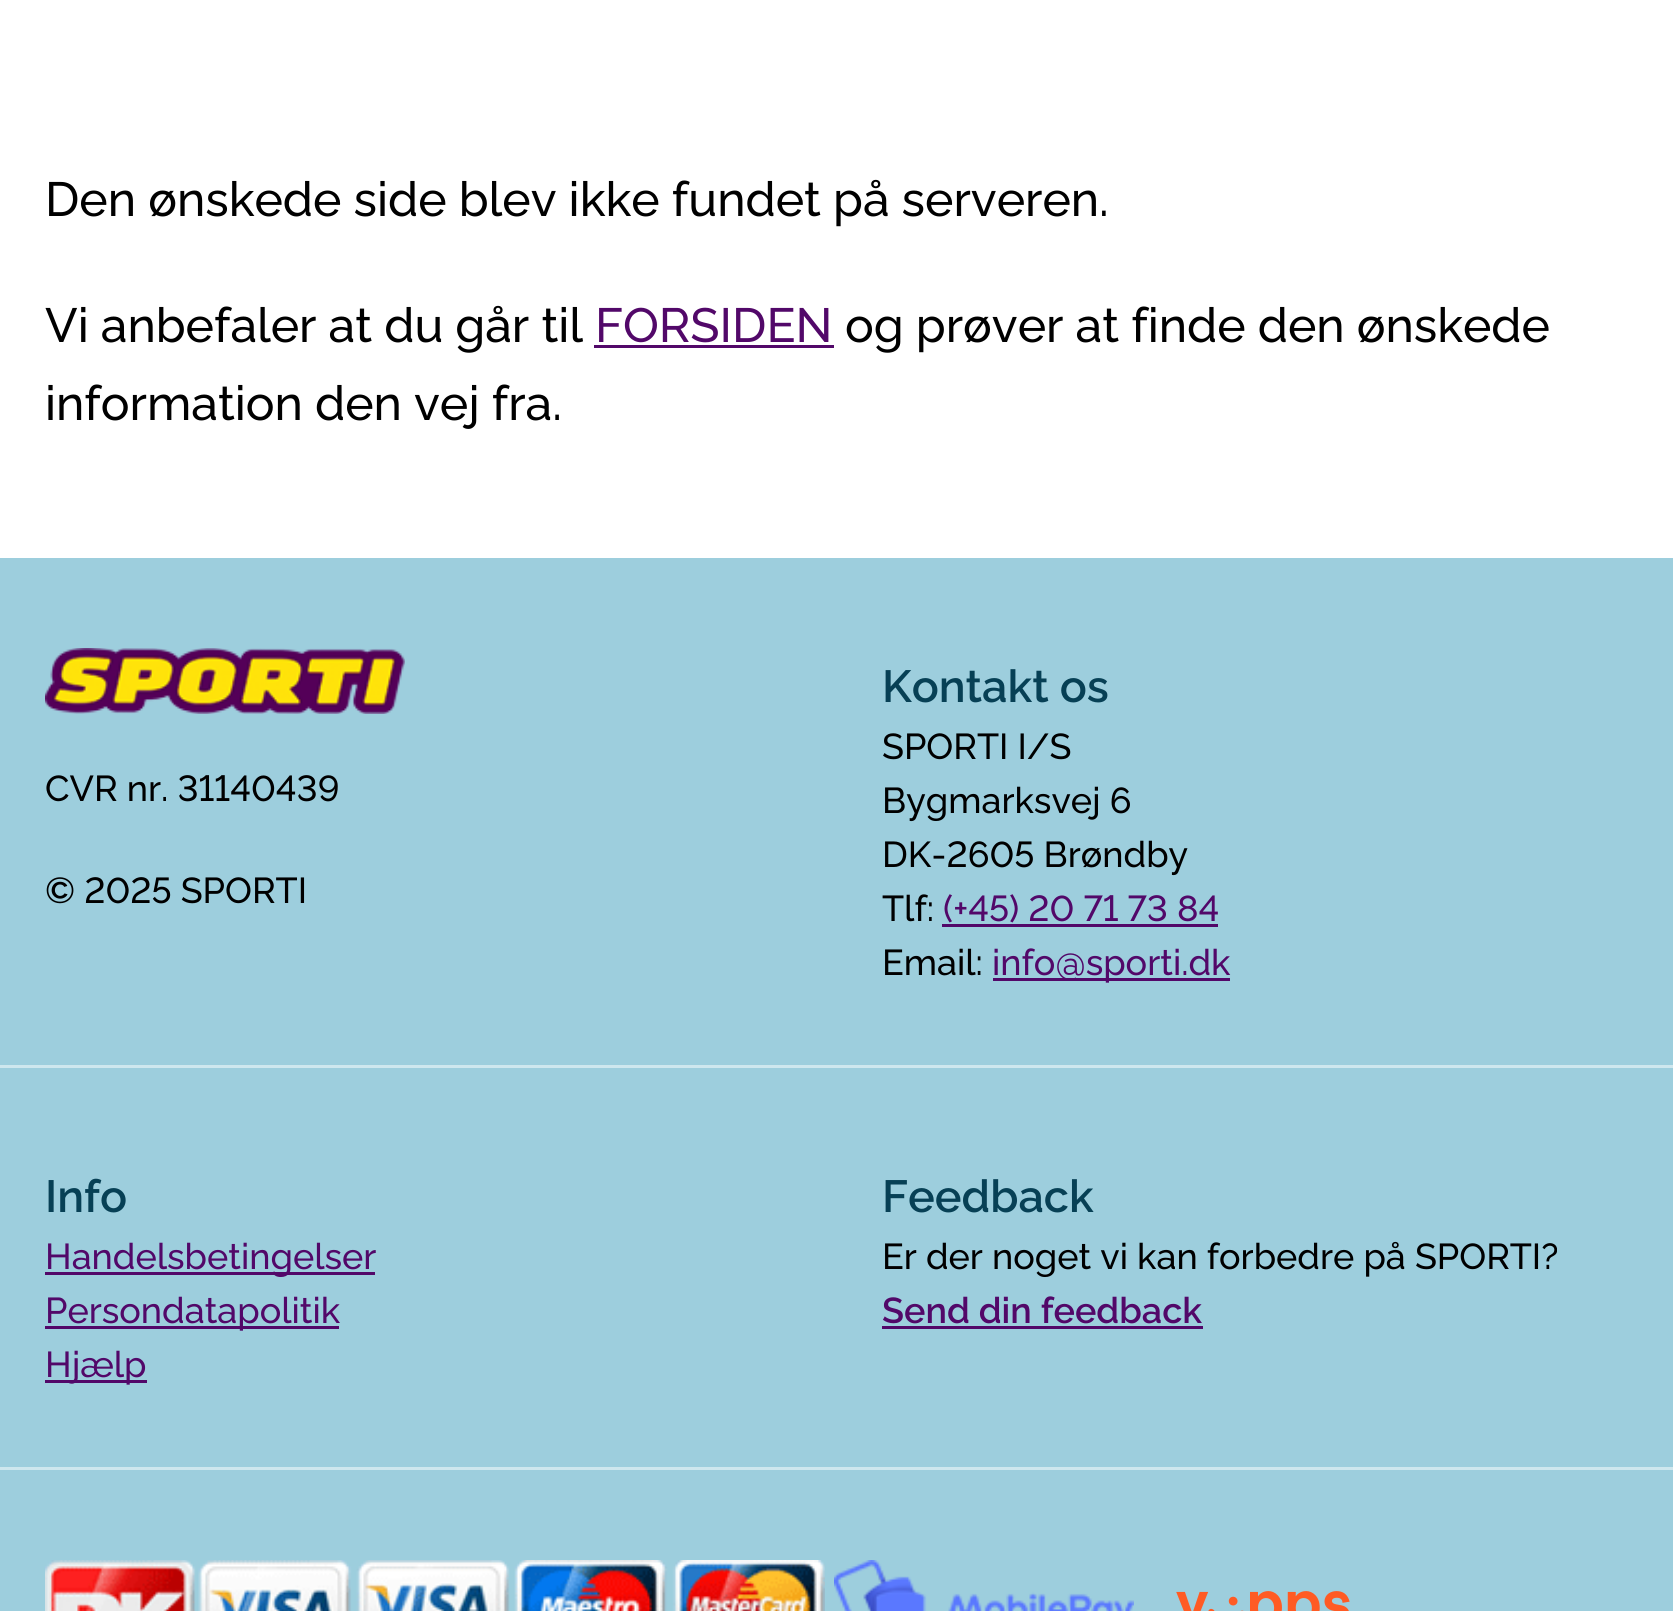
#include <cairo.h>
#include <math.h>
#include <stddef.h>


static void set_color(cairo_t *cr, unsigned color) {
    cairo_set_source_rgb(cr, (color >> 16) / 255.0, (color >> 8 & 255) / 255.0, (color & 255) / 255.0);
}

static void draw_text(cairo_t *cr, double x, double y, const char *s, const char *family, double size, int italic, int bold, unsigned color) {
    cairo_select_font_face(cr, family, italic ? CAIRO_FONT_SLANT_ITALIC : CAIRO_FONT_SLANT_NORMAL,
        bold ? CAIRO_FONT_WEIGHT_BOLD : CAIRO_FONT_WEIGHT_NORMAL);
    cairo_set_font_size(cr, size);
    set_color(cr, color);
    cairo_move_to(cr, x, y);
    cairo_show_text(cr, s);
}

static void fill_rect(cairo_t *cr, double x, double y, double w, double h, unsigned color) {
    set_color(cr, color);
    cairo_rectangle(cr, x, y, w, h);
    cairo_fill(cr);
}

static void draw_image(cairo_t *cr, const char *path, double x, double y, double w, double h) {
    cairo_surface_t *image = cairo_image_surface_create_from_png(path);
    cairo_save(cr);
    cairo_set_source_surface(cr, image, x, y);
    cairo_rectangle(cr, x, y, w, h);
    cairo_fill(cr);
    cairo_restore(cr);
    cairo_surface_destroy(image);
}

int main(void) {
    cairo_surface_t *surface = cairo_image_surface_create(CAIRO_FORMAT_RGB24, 1673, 1611);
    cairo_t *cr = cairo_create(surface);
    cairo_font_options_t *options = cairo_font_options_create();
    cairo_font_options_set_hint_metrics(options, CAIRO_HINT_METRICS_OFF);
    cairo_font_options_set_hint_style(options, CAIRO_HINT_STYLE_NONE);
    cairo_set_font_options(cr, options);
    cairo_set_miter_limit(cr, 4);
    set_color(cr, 0xFFFFFF);
    cairo_paint(cr);
    draw_text(cr, 45, 216, "Den ønskede side blev ikke fundet på serveren.", "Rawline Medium", 48, 0, 0, 0x000000);
    draw_text(cr, 45, 342, "Vi anbefaler at du går til", "Rawline Medium", 48, 0, 0, 0x000000);
    draw_text(cr, 595, 342, "FORSIDEN", "Rawline Medium", 48, 0, 0, 0x520869);
    fill_rect(cr, 594, 345, 240, 3, 0x520869);
    draw_text(cr, 845, 342, "og prøver at finde den ønskede", "Rawline Medium", 48, 0, 0, 0x000000);
    draw_text(cr, 45, 420, "information den vej fra.", "Rawline Medium", 48, 0, 0, 0x000000);
    fill_rect(cr, 0, 558, 1673, 1053, 0x9DCEDD);
    fill_rect(cr, 0, 1065, 1673, 3, 0xCEE7EE);
    draw_image(cr, "assets/img1.png", 45, 648, 360, 66);
    draw_text(cr, 45, 801, "CVR nr. 31140439", "Rawline Medium", 36, 0, 0, 0x000000);
    draw_text(cr, 45, 903, "© 2025 SPORTI", "Rawline Medium", 36, 0, 0, 0x000000);
    draw_text(cr, 882, 702, "Kontakt os", "Rawline SemiBold", 45, 0, 0, 0x074055);
    draw_text(cr, 882, 759, "SPORTI I/S", "Rawline Medium", 36, 0, 0, 0x000000);
    draw_text(cr, 882, 813, "Bygmarksvej 6", "Rawline Medium", 36, 0, 0, 0x000000);
    draw_text(cr, 882, 867, "DK-2605 Brøndby", "Rawline Medium", 36, 0, 0, 0x000000);
    draw_text(cr, 882, 921, "Tlf:", "Rawline Medium", 36, 0, 0, 0x000000);
    draw_text(cr, 943, 921, "(+45) 20 71 73 84", "Rawline Medium", 36, 0, 0, 0x520869);
    fill_rect(cr, 942, 924, 276, 3, 0x520869);
    draw_text(cr, 882, 975, "Email:", "Rawline Medium", 36, 0, 0, 0x000000);
    fill_rect(cr, 993, 978, 237, 3, 0x520869);
    draw_text(cr, 992, 975, "info@sporti.dk", "Rawline Medium", 36, 0, 0, 0x520869);
    fill_rect(cr, 0, 1467, 1673, 3, 0xCEE7EE);
    draw_text(cr, 45, 1212, "Info", "Rawline SemiBold", 45, 0, 0, 0x074055);
    fill_rect(cr, 45, 1272, 330, 3, 0x520869);
    draw_text(cr, 45, 1269, "Handelsbetingelser", "Rawline Medium", 36, 0, 0, 0x520869);
    fill_rect(cr, 45, 1326, 294, 3, 0x520869);
    draw_text(cr, 45, 1323, "Persondatapolitik", "Rawline Medium", 36, 0, 0, 0x520869);
    fill_rect(cr, 45, 1380, 102, 3, 0x520869);
    draw_text(cr, 45, 1377, "Hjælp", "Rawline Medium", 36, 0, 0, 0x520869);
    draw_text(cr, 882, 1212, "Feedback", "Rawline SemiBold", 45, 0, 0, 0x074055);
    draw_text(cr, 882, 1269, "Er der noget vi kan forbedre på SPORTI?", "Rawline Medium", 36, 0, 0, 0x000000);
    draw_text(cr, 882, 1323, "Send din feedback", "Rawline SemiBold", 36, 0, 0, 0x520869);
    fill_rect(cr, 882, 1326, 321, 3, 0x520869);
    draw_image(cr, "assets/img2.png", 45, 1560, 780, 51);
    draw_image(cr, "assets/img3.png", 834, 1560, 300, 51);
    draw_image(cr, "assets/img4.png", 1176, 1591, 174, 20);
    cairo_surface_write_to_png(surface, "output.png");
    cairo_font_options_destroy(options);
    cairo_destroy(cr);
    cairo_surface_destroy(surface);
    return 0;
}
